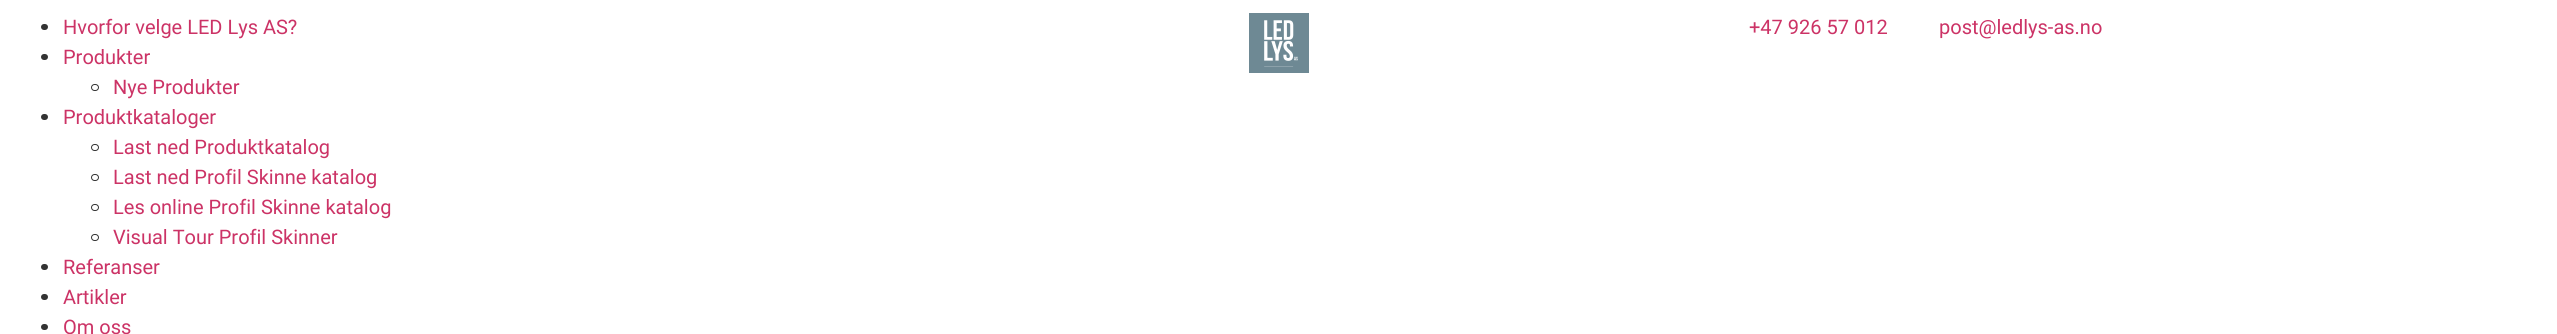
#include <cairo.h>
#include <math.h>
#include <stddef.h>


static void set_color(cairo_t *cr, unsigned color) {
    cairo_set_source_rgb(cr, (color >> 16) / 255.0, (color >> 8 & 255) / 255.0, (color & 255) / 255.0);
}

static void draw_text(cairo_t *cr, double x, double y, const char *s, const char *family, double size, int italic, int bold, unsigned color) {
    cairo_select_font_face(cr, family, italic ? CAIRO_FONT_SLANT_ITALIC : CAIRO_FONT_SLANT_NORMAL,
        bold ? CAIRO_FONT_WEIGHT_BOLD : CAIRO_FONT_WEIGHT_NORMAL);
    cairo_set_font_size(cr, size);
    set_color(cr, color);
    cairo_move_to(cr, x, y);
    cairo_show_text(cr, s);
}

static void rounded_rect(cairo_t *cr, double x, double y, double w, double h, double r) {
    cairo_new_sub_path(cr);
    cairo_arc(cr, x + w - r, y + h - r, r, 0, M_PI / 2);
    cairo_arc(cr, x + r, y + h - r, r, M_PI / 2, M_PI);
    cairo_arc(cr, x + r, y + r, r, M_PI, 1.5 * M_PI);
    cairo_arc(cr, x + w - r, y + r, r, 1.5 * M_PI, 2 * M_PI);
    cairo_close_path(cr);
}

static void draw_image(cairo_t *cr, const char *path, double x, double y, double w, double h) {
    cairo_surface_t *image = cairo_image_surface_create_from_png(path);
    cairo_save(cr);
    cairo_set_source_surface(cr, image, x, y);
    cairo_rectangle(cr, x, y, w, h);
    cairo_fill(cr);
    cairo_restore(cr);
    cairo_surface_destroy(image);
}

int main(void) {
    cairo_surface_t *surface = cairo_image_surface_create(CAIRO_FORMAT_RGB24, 2557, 334);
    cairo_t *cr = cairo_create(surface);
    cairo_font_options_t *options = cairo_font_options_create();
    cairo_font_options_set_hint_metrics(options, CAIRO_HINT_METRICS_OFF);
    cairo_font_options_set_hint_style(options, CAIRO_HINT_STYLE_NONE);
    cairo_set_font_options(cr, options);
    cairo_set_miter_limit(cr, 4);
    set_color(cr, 0xFFFFFF);
    cairo_paint(cr);
    set_color(cr, 0x333333);
    rounded_rect(cr, 41, 24, 7, 6, 3);
    cairo_fill(cr);
    draw_text(cr, 63, 34, "Hvorfor velge LED Lys AS?", "Roboto", 20, 0, 0, 0xCC3366);
    set_color(cr, 0x333333);
    rounded_rect(cr, 41, 54, 7, 6, 3);
    cairo_fill(cr);
    draw_text(cr, 63, 64, "Produkter", "Roboto", 20, 0, 0, 0xCC3366);
    rounded_rect(cr, 91.5, 84.5, 7, 6, 3);
    set_color(cr, 0x333333);
    cairo_set_line_width(cr, 1);
    cairo_stroke(cr);
    draw_text(cr, 113, 94, "Nye Produkter", "Roboto", 20, 0, 0, 0xCC3366);
    set_color(cr, 0x333333);
    rounded_rect(cr, 41, 114, 7, 6, 3);
    cairo_fill(cr);
    draw_text(cr, 63, 124, "Produktkataloger", "Roboto", 20, 0, 0, 0xCC3366);
    rounded_rect(cr, 91.5, 144.5, 7, 6, 3);
    set_color(cr, 0x333333);
    cairo_stroke(cr);
    draw_text(cr, 113, 154, "Last ned Produktkatalog", "Roboto", 20, 0, 0, 0xCC3366);
    rounded_rect(cr, 91.5, 174.5, 7, 6, 3);
    set_color(cr, 0x333333);
    cairo_stroke(cr);
    draw_text(cr, 113, 184, "Last ned Profil Skinne katalog", "Roboto", 20, 0, 0, 0xCC3366);
    rounded_rect(cr, 91.5, 204.5, 7, 6, 3);
    set_color(cr, 0x333333);
    cairo_stroke(cr);
    draw_text(cr, 113, 214, "Les online Profil Skinne katalog", "Roboto", 20, 0, 0, 0xCC3366);
    rounded_rect(cr, 91.5, 234.5, 7, 6, 3);
    set_color(cr, 0x333333);
    cairo_stroke(cr);
    draw_text(cr, 113, 244, "Visual Tour Profil Skinner", "Roboto", 20, 0, 0, 0xCC3366);
    set_color(cr, 0x333333);
    rounded_rect(cr, 41, 264, 7, 6, 3);
    cairo_fill(cr);
    draw_text(cr, 63, 274, "Referanser", "Roboto", 20, 0, 0, 0xCC3366);
    set_color(cr, 0x333333);
    rounded_rect(cr, 41, 294, 7, 6, 3);
    cairo_fill(cr);
    draw_text(cr, 63, 304, "Artikler", "Roboto", 20, 0, 0, 0xCC3366);
    set_color(cr, 0x333333);
    rounded_rect(cr, 41, 324, 7, 6, 3);
    cairo_fill(cr);
    draw_text(cr, 63, 334, "Om oss", "Roboto", 20, 0, 0, 0xCC3366);
    draw_image(cr, "assets/img1.png", 1249, 13, 60, 60);
    draw_text(cr, 1749, 34, "+47 926 57 012", "Roboto", 20, 0, 0, 0xCC3366);
    draw_text(cr, 1939, 34, "post@ledlys-as.no", "Roboto", 20, 0, 0, 0xCC3366);
    cairo_surface_write_to_png(surface, "output.png");
    cairo_font_options_destroy(options);
    cairo_destroy(cr);
    cairo_surface_destroy(surface);
    return 0;
}
